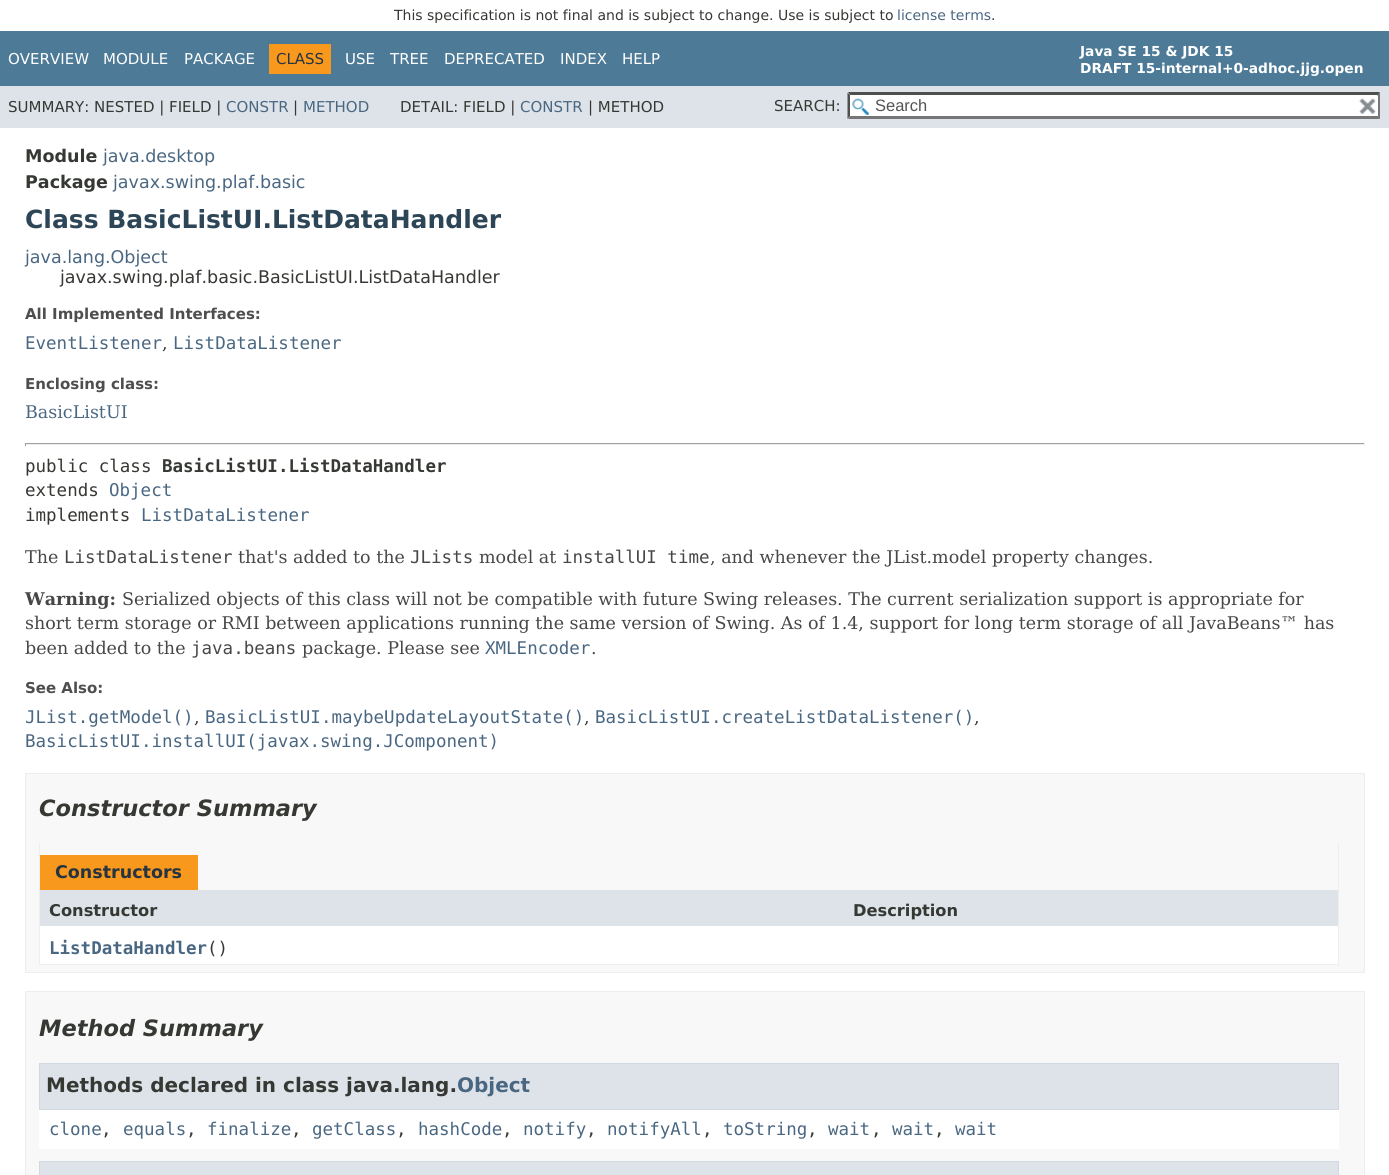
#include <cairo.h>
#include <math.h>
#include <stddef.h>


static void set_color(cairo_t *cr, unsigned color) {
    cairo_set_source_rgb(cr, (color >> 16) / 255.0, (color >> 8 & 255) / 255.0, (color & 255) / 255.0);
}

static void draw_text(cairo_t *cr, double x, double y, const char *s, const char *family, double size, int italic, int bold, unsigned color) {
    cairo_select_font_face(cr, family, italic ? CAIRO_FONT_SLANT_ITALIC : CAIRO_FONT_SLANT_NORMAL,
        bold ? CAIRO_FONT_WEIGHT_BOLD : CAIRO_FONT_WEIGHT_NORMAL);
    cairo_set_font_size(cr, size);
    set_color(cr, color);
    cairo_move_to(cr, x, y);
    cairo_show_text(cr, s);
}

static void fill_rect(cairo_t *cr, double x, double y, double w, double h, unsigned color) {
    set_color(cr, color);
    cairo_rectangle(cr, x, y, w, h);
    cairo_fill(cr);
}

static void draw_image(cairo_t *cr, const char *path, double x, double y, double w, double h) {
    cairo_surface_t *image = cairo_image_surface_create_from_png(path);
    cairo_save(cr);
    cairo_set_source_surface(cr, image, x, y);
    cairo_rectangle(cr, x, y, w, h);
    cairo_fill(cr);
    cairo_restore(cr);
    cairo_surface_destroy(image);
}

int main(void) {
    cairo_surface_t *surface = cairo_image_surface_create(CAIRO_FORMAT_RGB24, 1389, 1175);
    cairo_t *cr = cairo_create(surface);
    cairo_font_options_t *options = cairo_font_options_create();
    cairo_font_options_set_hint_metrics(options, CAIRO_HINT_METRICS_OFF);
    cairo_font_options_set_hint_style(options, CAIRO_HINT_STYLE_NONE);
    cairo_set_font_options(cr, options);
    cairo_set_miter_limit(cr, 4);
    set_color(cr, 0xFFFFFF);
    cairo_paint(cr);
    draw_text(cr, 394, 20, "This specification is not final and is subject to change. Use is subject to", "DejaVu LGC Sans", 14, 0, 0, 0x353833);
    draw_text(cr, 897, 20, "license terms", "DejaVu LGC Sans", 14, 0, 0, 0x4A6782);
    draw_text(cr, 991, 20, ".", "DejaVu LGC Sans", 14, 0, 0, 0x353833);
    fill_rect(cr, 0, 31, 1389, 55, 0x4D7A97);
    draw_text(cr, 8, 64, "OVERVIEW", "DejaVu LGC Sans", 15, 0, 0, 0xFFFFFF);
    draw_text(cr, 103, 64, "MODULE", "DejaVu LGC Sans", 15, 0, 0, 0xFFFFFF);
    draw_text(cr, 184, 64, "PACKAGE", "DejaVu LGC Sans", 15, 0, 0, 0xFFFFFF);
    fill_rect(cr, 269, 44, 62, 30, 0xF8981D);
    draw_text(cr, 276, 64, "CLASS", "DejaVu LGC Sans", 15, 0, 0, 0x253441);
    draw_text(cr, 345, 64, "USE", "DejaVu LGC Sans", 15, 0, 0, 0xFFFFFF);
    draw_text(cr, 390, 64, "TREE", "DejaVu LGC Sans", 15, 0, 0, 0xFFFFFF);
    draw_text(cr, 444, 64, "DEPRECATED", "DejaVu LGC Sans", 15, 0, 0, 0xFFFFFF);
    draw_text(cr, 560, 64, "INDEX", "DejaVu LGC Sans", 15, 0, 0, 0xFFFFFF);
    draw_text(cr, 622, 64, "HELP", "DejaVu LGC Sans", 15, 0, 0, 0xFFFFFF);
    draw_text(cr, 1080, 56, "Java SE 15 & JDK 15", "DejaVu LGC Sans", 13.75, 0, 1, 0xFFFFFF);
    draw_text(cr, 1080, 73, "DRAFT 15-internal+0-adhoc.jjg.open", "DejaVu LGC Sans", 13.75, 0, 1, 0xFFFFFF);
    fill_rect(cr, 0, 86, 1389, 42, 0xDEE3E9);
    draw_text(cr, 8, 112, "SUMMARY: NESTED | FIELD |", "DejaVu LGC Sans", 15, 0, 0, 0x353833);
    draw_text(cr, 226, 112, "CONSTR", "DejaVu LGC Sans", 15, 0, 0, 0x4A6782);
    draw_text(cr, 293, 112, "|", "DejaVu LGC Sans", 15, 0, 0, 0x353833);
    draw_text(cr, 303, 112, "METHOD", "DejaVu LGC Sans", 15, 0, 0, 0x4A6782);
    draw_text(cr, 400, 112, "DETAIL: FIELD |", "DejaVu LGC Sans", 15, 0, 0, 0x353833);
    draw_text(cr, 520, 112, "CONSTR", "DejaVu LGC Sans", 15, 0, 0, 0x4A6782);
    draw_text(cr, 588, 112, "| METHOD", "DejaVu LGC Sans", 15, 0, 0, 0x353833);
    draw_text(cr, 774, 111, "SEARCH:", "DejaVu LGC Sans", 15, 0, 0, 0x353833);
    fill_rect(cr, 848, 93, 532, 26, 0xFFFFFF);
    draw_image(cr, "assets/img1.png", 852, 98, 17, 17);
    set_color(cr, 0x4F4F4F);
    cairo_new_path(cr);
    cairo_move_to(cr, 848, 92);
    cairo_line_to(cr, 1380, 92);
    cairo_line_to(cr, 1378, 95);
    cairo_line_to(cr, 850, 95);
    cairo_close_path(cr);
    cairo_fill(cr);
    set_color(cr, 0x767676);
    cairo_new_path(cr);
    cairo_move_to(cr, 1380, 92.5);
    cairo_line_to(cr, 1380, 119);
    cairo_line_to(cr, 1377.5, 116);
    cairo_line_to(cr, 1377.5, 95);
    cairo_close_path(cr);
    cairo_fill(cr);
    cairo_new_path(cr);
    cairo_move_to(cr, 1380, 119);
    cairo_line_to(cr, 848, 119);
    cairo_line_to(cr, 850, 116);
    cairo_line_to(cr, 1378, 116);
    cairo_close_path(cr);
    cairo_fill(cr);
    set_color(cr, 0x4F4F4F);
    cairo_new_path(cr);
    cairo_move_to(cr, 847.5, 119);
    cairo_line_to(cr, 847.5, 92.5);
    cairo_line_to(cr, 850, 95);
    cairo_line_to(cr, 850, 116);
    cairo_close_path(cr);
    cairo_fill(cr);
    draw_text(cr, 875, 111, "Search", "Liberation Sans", 16.5, 0, 0, 0x545454);
    fill_rect(cr, 1377, 96, 1, 20, 0xFFFFFF);
    draw_image(cr, "assets/img2.png", 1359, 98, 17, 16);
    draw_text(cr, 25, 162, "Module", "DejaVu LGC Sans", 17.5, 0, 1, 0x353833);
    draw_text(cr, 103, 162, "java.desktop", "DejaVu LGC Sans", 17.5, 0, 0, 0x4A6782);
    draw_text(cr, 25, 188, "Package", "DejaVu LGC Sans", 17.5, 0, 1, 0x353833);
    draw_text(cr, 113, 188, "javax.swing.plaf.basic", "DejaVu LGC Sans", 17.5, 0, 0, 0x4A6782);
    draw_text(cr, 25, 228, "Class BasicListUI.ListDataHandler", "DejaVu LGC Sans", 25, 0, 1, 0x2C4557);
    draw_text(cr, 25, 263, "java.lang.Object", "DejaVu LGC Sans", 17.5, 0, 0, 0x4A6782);
    draw_text(cr, 60, 283, "javax.swing.plaf.basic.BasicListUI.ListDataHandler", "DejaVu LGC Sans", 17.5, 0, 0, 0x353833);
    draw_text(cr, 25, 319, "All Implemented Interfaces:", "DejaVu LGC Sans", 15, 0, 1, 0x4E4E4E);
    draw_text(cr, 25, 349, "EventListener", "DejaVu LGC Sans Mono", 17.5, 0, 0, 0x4A6782);
    draw_text(cr, 162, 349, ",", "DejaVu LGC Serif", 17.5, 0, 0, 0x353833);
    draw_text(cr, 173, 349, "ListDataListener", "DejaVu LGC Sans Mono", 17.5, 0, 0, 0x4A6782);
    draw_text(cr, 25, 389, "Enclosing class:", "DejaVu LGC Sans", 15, 0, 1, 0x4E4E4E);
    draw_text(cr, 25, 418, "BasicListUI", "DejaVu LGC Serif", 17.5, 0, 0, 0x4A6782);
    fill_rect(cr, 25, 443, 1340, 1, 0x9F9F9F);
    fill_rect(cr, 1364, 443, 1, 3, 0xEEEEEE);
    fill_rect(cr, 25, 444, 1340, 1, 0xEEEEEE);
    fill_rect(cr, 25, 443, 1, 3, 0x9F9F9F);
    draw_text(cr, 25, 472, "public class", "DejaVu LGC Sans Mono", 17.5, 0, 0, 0x353833);
    draw_text(cr, 162, 472, "BasicListUI.ListDataHandler", "DejaVu LGC Sans Mono", 17.5, 0, 1, 0x353833);
    draw_text(cr, 25, 496, "extends", "DejaVu LGC Sans Mono", 17.5, 0, 0, 0x353833);
    draw_text(cr, 109, 496, "Object", "DejaVu LGC Sans Mono", 17.5, 0, 0, 0x4A6782);
    draw_text(cr, 25, 521, "implements", "DejaVu LGC Sans Mono", 17.5, 0, 0, 0x353833);
    draw_text(cr, 141, 521, "ListDataListener", "DejaVu LGC Sans Mono", 17.5, 0, 0, 0x4A6782);
    draw_text(cr, 25, 563, "The", "DejaVu LGC Serif", 17.5, 0, 0, 0x474747);
    draw_text(cr, 64, 563, "ListDataListener", "DejaVu LGC Sans Mono", 17.5, 0, 0, 0x474747);
    draw_text(cr, 238, 563, "that's added to the", "DejaVu LGC Serif", 17.5, 0, 0, 0x474747);
    draw_text(cr, 410, 563, "JLists", "DejaVu LGC Sans Mono", 17.5, 0, 0, 0x474747);
    draw_text(cr, 479, 563, "model at", "DejaVu LGC Serif", 17.5, 0, 0, 0x474747);
    draw_text(cr, 562, 563, "installUI time", "DejaVu LGC Sans Mono", 17.5, 0, 0, 0x474747);
    draw_text(cr, 710, 563, ", and whenever the JList.model property changes.", "DejaVu LGC Serif", 17.5, 0, 0, 0x474747);
    draw_text(cr, 25, 605, "Warning:", "DejaVu LGC Serif", 17.5, 0, 1, 0x474747);
    draw_text(cr, 122, 605, "Serialized objects of this class will not be compatible with future Swing releases. The current serialization support is appropriate for", "DejaVu LGC Serif", 17.5, 0, 0, 0x474747);
    draw_text(cr, 25, 629, "short term storage or RMI between applications running the same version of Swing. As of 1.4, support for long term storage of all JavaBeans™ has", "DejaVu LGC Serif", 17.5, 0, 0, 0x474747);
    draw_text(cr, 25, 654, "been added to the", "DejaVu LGC Serif", 17.5, 0, 0, 0x474747);
    draw_text(cr, 191, 654, "java.beans", "DejaVu LGC Sans Mono", 17.5, 0, 0, 0x474747);
    draw_text(cr, 302, 654, "package. Please see", "DejaVu LGC Serif", 17.5, 0, 0, 0x474747);
    draw_text(cr, 485, 654, "XMLEncoder", "DejaVu LGC Sans Mono", 17.5, 0, 0, 0x4A6782);
    draw_text(cr, 591, 654, ".", "DejaVu LGC Serif", 17.5, 0, 0, 0x474747);
    draw_text(cr, 25, 693, "See Also:", "DejaVu LGC Sans", 15, 0, 1, 0x4E4E4E);
    draw_text(cr, 25, 723, "JList.getModel()", "DejaVu LGC Sans Mono", 17.5, 0, 0, 0x4A6782);
    draw_text(cr, 194, 723, ",", "DejaVu LGC Serif", 17.5, 0, 0, 0x353833);
    draw_text(cr, 205, 723, "BasicListUI.maybeUpdateLayoutState()", "DejaVu LGC Sans Mono", 17.5, 0, 0, 0x4A6782);
    draw_text(cr, 584, 723, ",", "DejaVu LGC Serif", 17.5, 0, 0, 0x353833);
    draw_text(cr, 595, 723, "BasicListUI.createListDataListener()", "DejaVu LGC Sans Mono", 17.5, 0, 0, 0x4A6782);
    draw_text(cr, 974, 723, ",", "DejaVu LGC Serif", 17.5, 0, 0, 0x353833);
    draw_text(cr, 25, 747, "BasicListUI.installUI(javax.swing.JComponent)", "DejaVu LGC Sans Mono", 17.5, 0, 0, 0x4A6782);
    set_color(cr, 0xF8F8F8);
    cairo_rectangle(cr, 25.5, 773.5, 1339, 199);
    cairo_fill_preserve(cr);
    set_color(cr, 0xEDEDED);
    cairo_set_line_width(cr, 1);
    cairo_stroke(cr);
    draw_text(cr, 39, 816, "Constructor Summary", "DejaVu LGC Sans", 22.5, 1, 1, 0x353833);
    fill_rect(cr, 1338, 843, 1, 122, 0xEEEEEE);
    fill_rect(cr, 39, 964, 1300, 1, 0xEEEEEE);
    fill_rect(cr, 39, 843, 1, 122, 0xEEEEEE);
    fill_rect(cr, 40, 855, 158, 35, 0xF8981D);
    draw_text(cr, 55, 878, "Constructors", "DejaVu LGC Sans", 17.5, 0, 1, 0x253441);
    fill_rect(cr, 40, 890, 1298, 36, 0xDEE3E9);
    draw_text(cr, 49, 916, "Constructor", "DejaVu LGC Sans", 16.25, 0, 1, 0x353833);
    draw_text(cr, 853, 916, "Description", "DejaVu LGC Sans", 16.25, 0, 1, 0x353833);
    fill_rect(cr, 40, 926, 1298, 38, 0xFFFFFF);
    draw_text(cr, 49, 954, "ListDataHandler", "DejaVu LGC Sans Mono", 17.5, 0, 1, 0x4A6782);
    draw_text(cr, 207, 954, "()", "DejaVu LGC Sans Mono", 17.5, 0, 0, 0x353833);
    set_color(cr, 0xF8F8F8);
    cairo_rectangle(cr, 25.5, 991.5, 1339, 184);
    cairo_fill_preserve(cr);
    set_color(cr, 0xEDEDED);
    cairo_stroke(cr);
    draw_text(cr, 39, 1036, "Method Summary", "DejaVu LGC Sans", 22.5, 1, 1, 0x353833);
    fill_rect(cr, 39, 1110, 1300, 39, 0xFFFFFF);
    set_color(cr, 0xDEE3E9);
    cairo_rectangle(cr, 39.5, 1063.5, 1299, 46);
    cairo_fill_preserve(cr);
    set_color(cr, 0xD0D9E0);
    cairo_stroke(cr);
    draw_text(cr, 46, 1092, "Methods declared in class java.lang.", "DejaVu LGC Sans", 20, 0, 1, 0x353833);
    draw_text(cr, 457, 1092, "Object", "DejaVu LGC Sans", 20, 0, 1, 0x4A6782);
    draw_text(cr, 49, 1135, "clone", "DejaVu LGC Sans Mono", 17.5, 0, 0, 0x4A6782);
    draw_text(cr, 101, 1135, ",", "DejaVu LGC Sans Mono", 17.5, 0, 0, 0x353833);
    draw_text(cr, 123, 1135, "equals", "DejaVu LGC Sans Mono", 17.5, 0, 0, 0x4A6782);
    draw_text(cr, 186, 1135, ",", "DejaVu LGC Sans Mono", 17.5, 0, 0, 0x353833);
    draw_text(cr, 207, 1135, "finalize", "DejaVu LGC Sans Mono", 17.5, 0, 0, 0x4A6782);
    draw_text(cr, 291, 1135, ",", "DejaVu LGC Sans Mono", 17.5, 0, 0, 0x353833);
    draw_text(cr, 312, 1135, "getClass", "DejaVu LGC Sans Mono", 17.5, 0, 0, 0x4A6782);
    draw_text(cr, 396, 1135, ",", "DejaVu LGC Sans Mono", 17.5, 0, 0, 0x353833);
    draw_text(cr, 418, 1135, "hashCode", "DejaVu LGC Sans Mono", 17.5, 0, 0, 0x4A6782);
    draw_text(cr, 502, 1135, ",", "DejaVu LGC Sans Mono", 17.5, 0, 0, 0x353833);
    draw_text(cr, 523, 1135, "notify", "DejaVu LGC Sans Mono", 17.5, 0, 0, 0x4A6782);
    draw_text(cr, 586, 1135, ",", "DejaVu LGC Sans Mono", 17.5, 0, 0, 0x353833);
    draw_text(cr, 607, 1135, "notifyAll", "DejaVu LGC Sans Mono", 17.5, 0, 0, 0x4A6782);
    draw_text(cr, 702, 1135, ",", "DejaVu LGC Sans Mono", 17.5, 0, 0, 0x353833);
    draw_text(cr, 723, 1135, "toString", "DejaVu LGC Sans Mono", 17.5, 0, 0, 0x4A6782);
    draw_text(cr, 807, 1135, ",", "DejaVu LGC Sans Mono", 17.5, 0, 0, 0x353833);
    draw_text(cr, 828, 1135, "wait", "DejaVu LGC Sans Mono", 17.5, 0, 0, 0x4A6782);
    draw_text(cr, 871, 1135, ",", "DejaVu LGC Sans Mono", 17.5, 0, 0, 0x353833);
    draw_text(cr, 892, 1135, "wait", "DejaVu LGC Sans Mono", 17.5, 0, 0, 0x4A6782);
    draw_text(cr, 934, 1135, ",", "DejaVu LGC Sans Mono", 17.5, 0, 0, 0x353833);
    draw_text(cr, 955, 1135, "wait", "DejaVu LGC Sans Mono", 17.5, 0, 0, 0x4A6782);
    set_color(cr, 0xDEE3E9);
    cairo_rectangle(cr, 39.5, 1161.5, 1299, 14);
    cairo_fill_preserve(cr);
    set_color(cr, 0xD0D9E0);
    cairo_stroke(cr);
    cairo_surface_write_to_png(surface, "output.png");
    cairo_font_options_destroy(options);
    cairo_destroy(cr);
    cairo_surface_destroy(surface);
    return 0;
}
